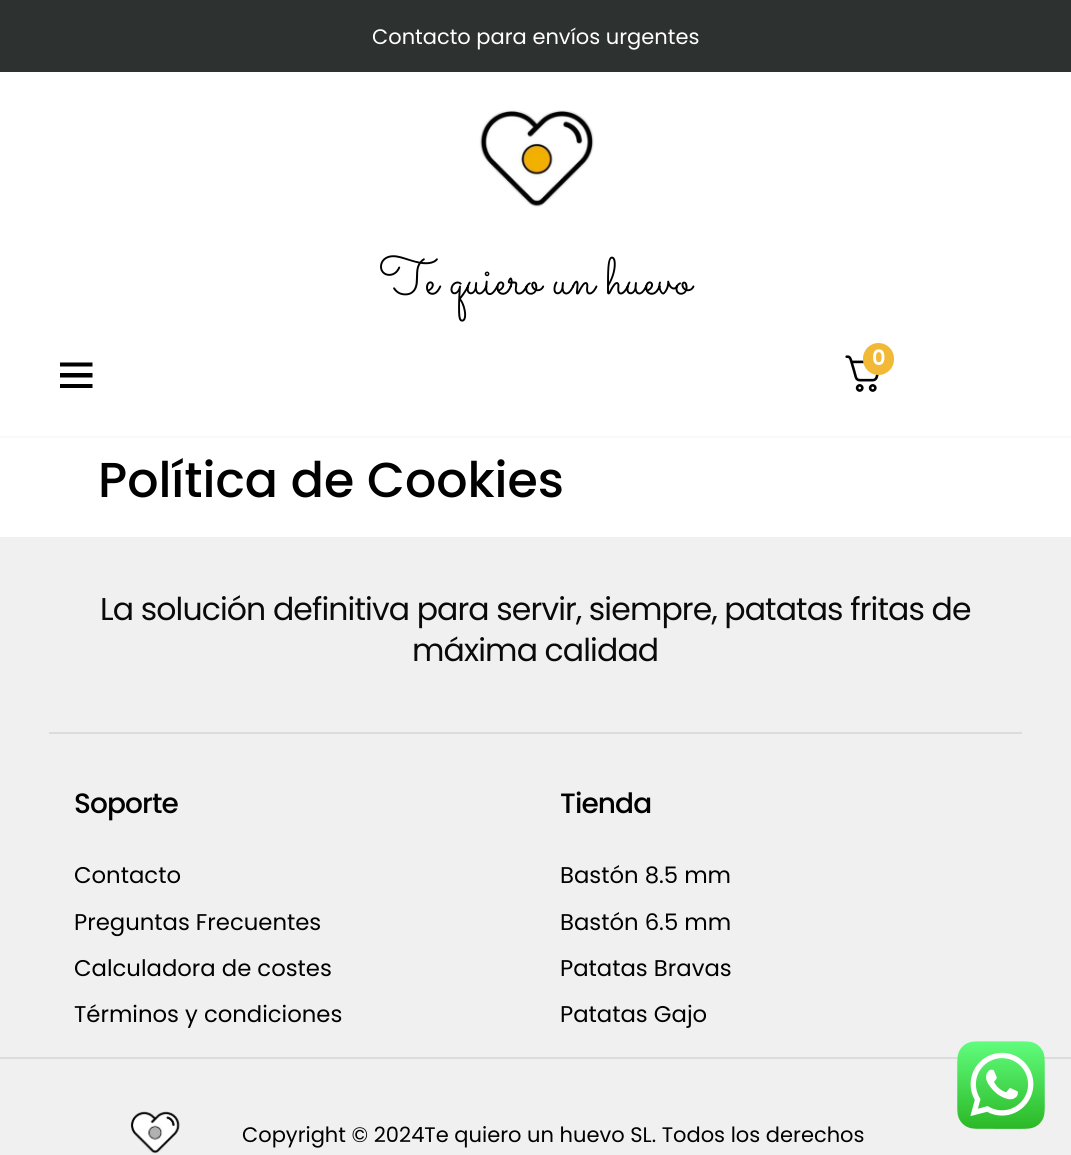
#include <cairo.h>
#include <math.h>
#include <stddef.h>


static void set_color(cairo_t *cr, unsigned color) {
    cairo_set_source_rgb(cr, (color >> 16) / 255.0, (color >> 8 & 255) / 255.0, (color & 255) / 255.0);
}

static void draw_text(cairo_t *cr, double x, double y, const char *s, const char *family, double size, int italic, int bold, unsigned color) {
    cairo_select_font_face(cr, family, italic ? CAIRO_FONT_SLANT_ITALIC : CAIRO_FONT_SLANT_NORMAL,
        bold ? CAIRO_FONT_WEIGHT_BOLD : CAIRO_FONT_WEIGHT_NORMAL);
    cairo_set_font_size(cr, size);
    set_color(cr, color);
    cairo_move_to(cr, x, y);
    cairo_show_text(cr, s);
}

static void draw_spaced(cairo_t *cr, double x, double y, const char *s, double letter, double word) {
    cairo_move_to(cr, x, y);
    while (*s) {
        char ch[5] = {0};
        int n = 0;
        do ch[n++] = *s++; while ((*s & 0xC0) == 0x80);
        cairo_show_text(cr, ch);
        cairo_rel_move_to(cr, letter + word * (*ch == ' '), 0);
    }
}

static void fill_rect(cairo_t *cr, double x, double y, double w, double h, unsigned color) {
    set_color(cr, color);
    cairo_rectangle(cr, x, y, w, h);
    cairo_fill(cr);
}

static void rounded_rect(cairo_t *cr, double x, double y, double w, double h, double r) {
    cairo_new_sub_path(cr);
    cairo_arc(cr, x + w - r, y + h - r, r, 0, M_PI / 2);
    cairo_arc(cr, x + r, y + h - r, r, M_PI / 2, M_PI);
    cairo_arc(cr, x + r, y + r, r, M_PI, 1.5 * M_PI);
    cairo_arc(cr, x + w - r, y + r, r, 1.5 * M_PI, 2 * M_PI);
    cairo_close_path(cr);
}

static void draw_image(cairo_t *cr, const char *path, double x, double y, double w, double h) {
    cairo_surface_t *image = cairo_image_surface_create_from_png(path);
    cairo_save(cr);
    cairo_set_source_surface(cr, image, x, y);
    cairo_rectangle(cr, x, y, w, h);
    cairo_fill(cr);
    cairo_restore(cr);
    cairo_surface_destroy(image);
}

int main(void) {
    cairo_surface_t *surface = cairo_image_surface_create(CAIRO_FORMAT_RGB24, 1071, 1155);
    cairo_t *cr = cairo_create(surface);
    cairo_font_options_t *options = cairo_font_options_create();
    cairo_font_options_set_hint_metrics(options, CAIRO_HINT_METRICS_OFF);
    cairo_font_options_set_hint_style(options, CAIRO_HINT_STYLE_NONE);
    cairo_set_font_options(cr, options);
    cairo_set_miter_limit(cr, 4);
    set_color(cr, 0xFFFFFF);
    cairo_paint(cr);
    fill_rect(cr, 0, 0, 1071, 72, 0x2D312F);
    draw_text(cr, 372, 44, "Contacto para envíos urgentes", "Poppins", 21, 0, 0, 0xFFFFFF);
    fill_rect(cr, 0, 436, 1071, 2, 0xF9F9F9);
    draw_image(cr, "assets/img1.png", 479, 110, 115, 98);
    draw_text(cr, 379, 294, "Te quiero un huevo", "Sacramento", 52.5, 0, 0, 0x000000);
    draw_image(cr, "assets/img2.png", 845, 355, 34, 37);
    set_color(cr, 0xF2B937);
    rounded_rect(cr, 863, 343, 31, 32, 15.5);
    cairo_fill(cr);
    draw_text(cr, 872, 365, "0", "Poppins SemiBold", 21, 0, 0, 0xFFFFFF);
    set_color(cr, 0x000000);
    cairo_new_path(cr);
    cairo_move_to(cr, 92.5, 362.5);
    cairo_line_to(cr, 92.5, 366.5);
    cairo_line_to(cr, 60, 366.5);
    cairo_line_to(cr, 60, 362.5);
    cairo_close_path(cr);
    cairo_move_to(cr, 60, 377.5);
    cairo_line_to(cr, 92.5, 377.5);
    cairo_line_to(cr, 92.5, 373);
    cairo_line_to(cr, 60, 373);
    cairo_close_path(cr);
    cairo_move_to(cr, 60, 388);
    cairo_line_to(cr, 92.5, 388);
    cairo_line_to(cr, 92.5, 384);
    cairo_line_to(cr, 60, 384);
    cairo_close_path(cr);
    cairo_fill(cr);
    draw_text(cr, 98, 497, "Política de Cookies", "Poppins Medium", 49, 0, 0, 0x000000);
    fill_rect(cr, 0, 537, 1071, 618, 0xF0F0F0);
    cairo_select_font_face(cr, "Poppins", CAIRO_FONT_SLANT_NORMAL, CAIRO_FONT_WEIGHT_NORMAL);
    cairo_set_font_size(cr, 31.5);
    set_color(cr, 0x0A0A0A);
    draw_spaced(cr, 100, 620, "La solución definitiva para servir, siempre, patatas fritas de", -0.88, 0);
    draw_spaced(cr, 412, 661, "máxima calidad", -0.88, 0);
    fill_rect(cr, 49, 732, 973, 2, 0xDCDCDE);
    fill_rect(cr, 0, 1057, 1071, 2, 0xDCDCDE);
    cairo_select_font_face(cr, "Poppins Medium", CAIRO_FONT_SLANT_NORMAL, CAIRO_FONT_WEIGHT_NORMAL);
    cairo_set_font_size(cr, 28);
    set_color(cr, 0x000000);
    draw_spaced(cr, 74, 813, "Soporte", -0.88, 0);
    draw_text(cr, 74, 883, "Contacto", "Poppins", 22.75, 0, 0, 0x000000);
    draw_text(cr, 74, 930, "Preguntas Frecuentes", "Poppins", 22.75, 0, 0, 0x000000);
    draw_text(cr, 74, 976, "Calculadora de costes", "Poppins", 22.75, 0, 0, 0x000000);
    draw_text(cr, 74, 1022, "Términos y condiciones", "Poppins", 22.75, 0, 0, 0x000000);
    cairo_select_font_face(cr, "Poppins Medium", CAIRO_FONT_SLANT_NORMAL, CAIRO_FONT_WEIGHT_NORMAL);
    cairo_set_font_size(cr, 28);
    draw_spaced(cr, 560, 813, "Tienda", -0.88, 0);
    draw_text(cr, 560, 883, "Bastón 8.5 mm", "Poppins", 22.75, 0, 0, 0x000000);
    draw_text(cr, 560, 930, "Bastón 6.5 mm", "Poppins", 22.75, 0, 0, 0x000000);
    draw_text(cr, 560, 976, "Patatas Bravas", "Poppins", 22.75, 0, 0, 0x000000);
    draw_text(cr, 560, 1022, "Patatas Gajo", "Poppins", 22.75, 0, 0, 0x000000);
    draw_image(cr, "assets/img3.png", 130, 1111, 50, 43);
    draw_text(cr, 242, 1142, "Copyright © 2024Te quiero un huevo SL. Todos los derechos", "Poppins", 21, 0, 0, 0x000000);
    draw_image(cr, "assets/img4.png", 957, 1041, 88, 88);
    cairo_surface_write_to_png(surface, "output.png");
    cairo_font_options_destroy(options);
    cairo_destroy(cr);
    cairo_surface_destroy(surface);
    return 0;
}
